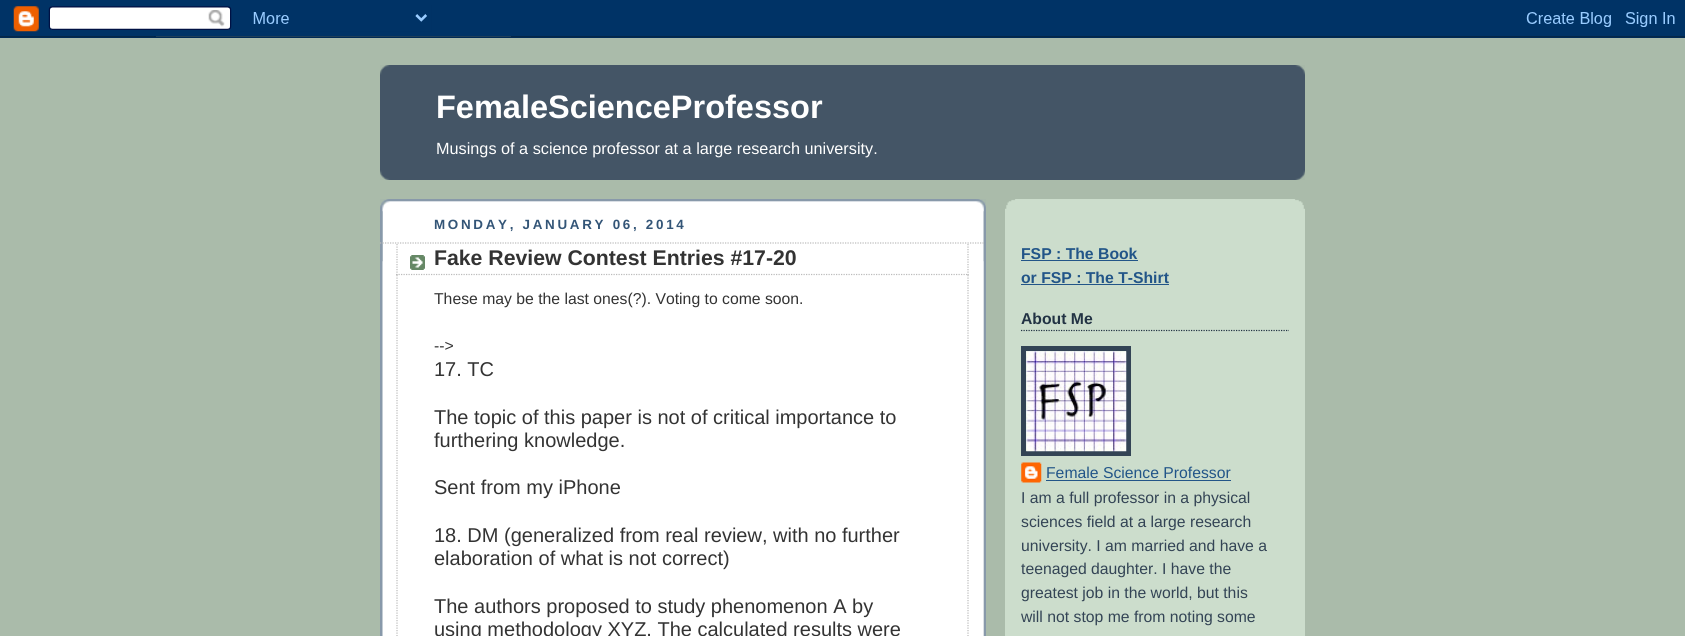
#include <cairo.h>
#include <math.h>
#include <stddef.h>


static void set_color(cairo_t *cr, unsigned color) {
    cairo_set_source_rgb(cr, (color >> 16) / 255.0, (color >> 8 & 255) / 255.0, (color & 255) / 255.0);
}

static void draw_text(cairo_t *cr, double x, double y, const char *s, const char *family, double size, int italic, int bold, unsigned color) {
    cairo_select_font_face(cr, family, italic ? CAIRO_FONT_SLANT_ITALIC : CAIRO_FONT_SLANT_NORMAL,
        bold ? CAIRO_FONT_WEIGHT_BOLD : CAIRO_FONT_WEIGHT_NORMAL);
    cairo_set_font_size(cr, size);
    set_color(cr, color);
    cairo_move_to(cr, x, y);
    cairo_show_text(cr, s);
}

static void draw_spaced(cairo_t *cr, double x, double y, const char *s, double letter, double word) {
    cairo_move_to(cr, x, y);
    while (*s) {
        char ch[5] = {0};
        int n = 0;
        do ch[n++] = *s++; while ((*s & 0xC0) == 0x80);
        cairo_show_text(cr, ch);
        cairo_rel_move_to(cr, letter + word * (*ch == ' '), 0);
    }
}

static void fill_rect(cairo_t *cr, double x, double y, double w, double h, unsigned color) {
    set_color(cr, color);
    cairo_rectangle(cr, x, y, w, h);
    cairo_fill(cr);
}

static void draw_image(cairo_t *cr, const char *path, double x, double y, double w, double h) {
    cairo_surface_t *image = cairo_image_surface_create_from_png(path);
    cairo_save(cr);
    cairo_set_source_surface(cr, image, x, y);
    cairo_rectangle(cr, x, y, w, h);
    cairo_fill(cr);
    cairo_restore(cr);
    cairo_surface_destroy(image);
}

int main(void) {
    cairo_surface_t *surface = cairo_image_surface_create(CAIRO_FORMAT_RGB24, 1685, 636);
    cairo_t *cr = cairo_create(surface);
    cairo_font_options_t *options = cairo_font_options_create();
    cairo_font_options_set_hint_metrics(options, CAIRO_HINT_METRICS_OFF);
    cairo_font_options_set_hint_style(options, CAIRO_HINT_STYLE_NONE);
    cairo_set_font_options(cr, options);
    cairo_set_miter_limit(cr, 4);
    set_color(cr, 0xAABBAA);
    cairo_paint(cr);
    draw_image(cr, "assets/img1.png", 0, 0, 1685, 38);
    fill_rect(cr, 380, 65, 925, 115, 0x445566);
    draw_image(cr, "assets/img2.png", 380, 65, 925, 10);
    draw_image(cr, "assets/img3.png", 380, 170, 925, 10);
    draw_text(cr, 436, 118, "FemaleScienceProfessor", "Liberation Sans", 32.5, 0, 1, 0xFFFFFF);
    draw_text(cr, 436, 154, "Musings of a science professor at a large research university.", "Liberation Sans", 16.25, 0, 0, 0xFFFFFF);
    fill_rect(cr, 382, 201, 602, 435, 0xFFFFFF);
    draw_image(cr, "assets/img4.png", 380, 199, 606, 63);
    draw_image(cr, "assets/img5.png", 380, 211, 606, 425);
    cairo_select_font_face(cr, "Liberation Sans", CAIRO_FONT_SLANT_NORMAL, CAIRO_FONT_WEIGHT_BOLD);
    cairo_set_font_size(cr, 13.4);
    set_color(cr, 0x335577);
    draw_spaced(cr, 434, 229, "MONDAY, JANUARY 06, 2014", 2.7, 0);
    cairo_new_path(cr);
    cairo_move_to(cr, 380, 243);
    cairo_line_to(cr, 985, 243);
    set_color(cr, 0xBBBBBB);
    cairo_set_line_width(cr, 1.2);
    cairo_set_dash(cr, (double[]){1.25, 1.25}, 2, 0);
    cairo_stroke(cr);
    draw_image(cr, "assets/img6.png", 410, 255, 15, 15);
    cairo_new_path(cr);
    cairo_move_to(cr, 968, 244);
    cairo_line_to(cr, 968, 275);
    cairo_stroke(cr);
    cairo_new_path(cr);
    cairo_move_to(cr, 396, 274.5);
    cairo_line_to(cr, 969, 274.5);
    cairo_stroke(cr);
    cairo_new_path(cr);
    cairo_move_to(cr, 397, 244);
    cairo_line_to(cr, 397, 275);
    cairo_stroke(cr);
    draw_text(cr, 434, 265, "Fake Review Contest Entries #17-20", "Liberation Sans", 21.25, 0, 1, 0x333333);
    cairo_new_path(cr);
    cairo_move_to(cr, 968, 275);
    cairo_line_to(cr, 968, 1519);
    set_color(cr, 0xBBBBBB);
    cairo_stroke(cr);
    cairo_new_path(cr);
    cairo_move_to(cr, 397, 275);
    cairo_line_to(cr, 397, 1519);
    cairo_stroke(cr);
    draw_text(cr, 434, 304, "These may be the last ones(?). Voting to come soon.", "Liberation Sans", 15.75, 0, 0, 0x333333);
    draw_text(cr, 434, 351, "-->", "Liberation Sans", 15.75, 0, 0, 0x333333);
    draw_text(cr, 434, 376, "17. TC", "Liberation Sans", 20, 0, 0, 0x333333);
    draw_text(cr, 434, 424, "The topic of this paper is not of critical importance to", "Liberation Sans", 20, 0, 0, 0x333333);
    draw_text(cr, 434, 447, "furthering knowledge.", "Liberation Sans", 20, 0, 0, 0x333333);
    draw_text(cr, 434, 494, "Sent from my iPhone", "Liberation Sans", 20, 0, 0, 0x333333);
    draw_text(cr, 434, 542, "18. DM (generalized from real review, with no further", "Liberation Sans", 20, 0, 0, 0x333333);
    draw_text(cr, 434, 565, "elaboration of what is not correct)", "Liberation Sans", 20, 0, 0, 0x333333);
    draw_text(cr, 434, 613, "The authors proposed to study phenomenon A by", "Liberation Sans", 20, 0, 0, 0x333333);
    draw_text(cr, 434, 636, "using methodology XYZ. The calculated results were", "Liberation Sans", 20, 0, 0, 0x333333);
    fill_rect(cr, 1005, 199, 300, 437, 0xCCDDCC);
    draw_image(cr, "assets/img7.png", 1005, 199, 300, 10);
    draw_text(cr, 1021, 259, "FSP : The Book", "Liberation Sans", 15.75, 0, 1, 0x225588);
    fill_rect(cr, 1021, 260, 117, 1, 0x225588);
    draw_text(cr, 1021, 283, "or FSP : The T-Shirt", "Liberation Sans", 15.75, 0, 1, 0x225588);
    fill_rect(cr, 1021, 284, 148, 1, 0x225588);
    cairo_new_path(cr);
    cairo_move_to(cr, 1021, 330.5);
    cairo_line_to(cr, 1289, 330.5);
    set_color(cr, 0x223344);
    cairo_stroke(cr);
    draw_text(cr, 1021, 324, "About Me", "Liberation Sans", 15.75, 0, 1, 0x223344);
    cairo_rectangle(cr, 1023.5, 348.5, 105, 105);
    set_color(cr, 0x334455);
    cairo_set_line_width(cr, 5);
    cairo_set_dash(cr, NULL, 0, 0);
    cairo_stroke(cr);
    draw_image(cr, "assets/img8.png", 1026, 351, 101, 101);
    draw_image(cr, "assets/img9.png", 1021, 462, 21, 21);
    draw_text(cr, 1046, 478, "Female Science Professor", "Liberation Sans", 15.75, 0, 0, 0x225588);
    fill_rect(cr, 1046, 480, 185, 1, 0x225588);
    draw_text(cr, 1021, 503, "I am a full professor in a physical", "Liberation Sans", 15.75, 0, 0, 0x334455);
    draw_text(cr, 1021, 527, "sciences field at a large research", "Liberation Sans", 15.75, 0, 0, 0x334455);
    draw_text(cr, 1021, 551, "university. I am married and have a", "Liberation Sans", 15.75, 0, 0, 0x334455);
    draw_text(cr, 1021, 574, "teenaged daughter. I have the", "Liberation Sans", 15.75, 0, 0, 0x334455);
    draw_text(cr, 1021, 598, "greatest job in the world, but this", "Liberation Sans", 15.75, 0, 0, 0x334455);
    draw_text(cr, 1021, 622, "will not stop me from noting some", "Liberation Sans", 15.75, 0, 0, 0x334455);
    cairo_surface_write_to_png(surface, "output.png");
    cairo_font_options_destroy(options);
    cairo_destroy(cr);
    cairo_surface_destroy(surface);
    return 0;
}
